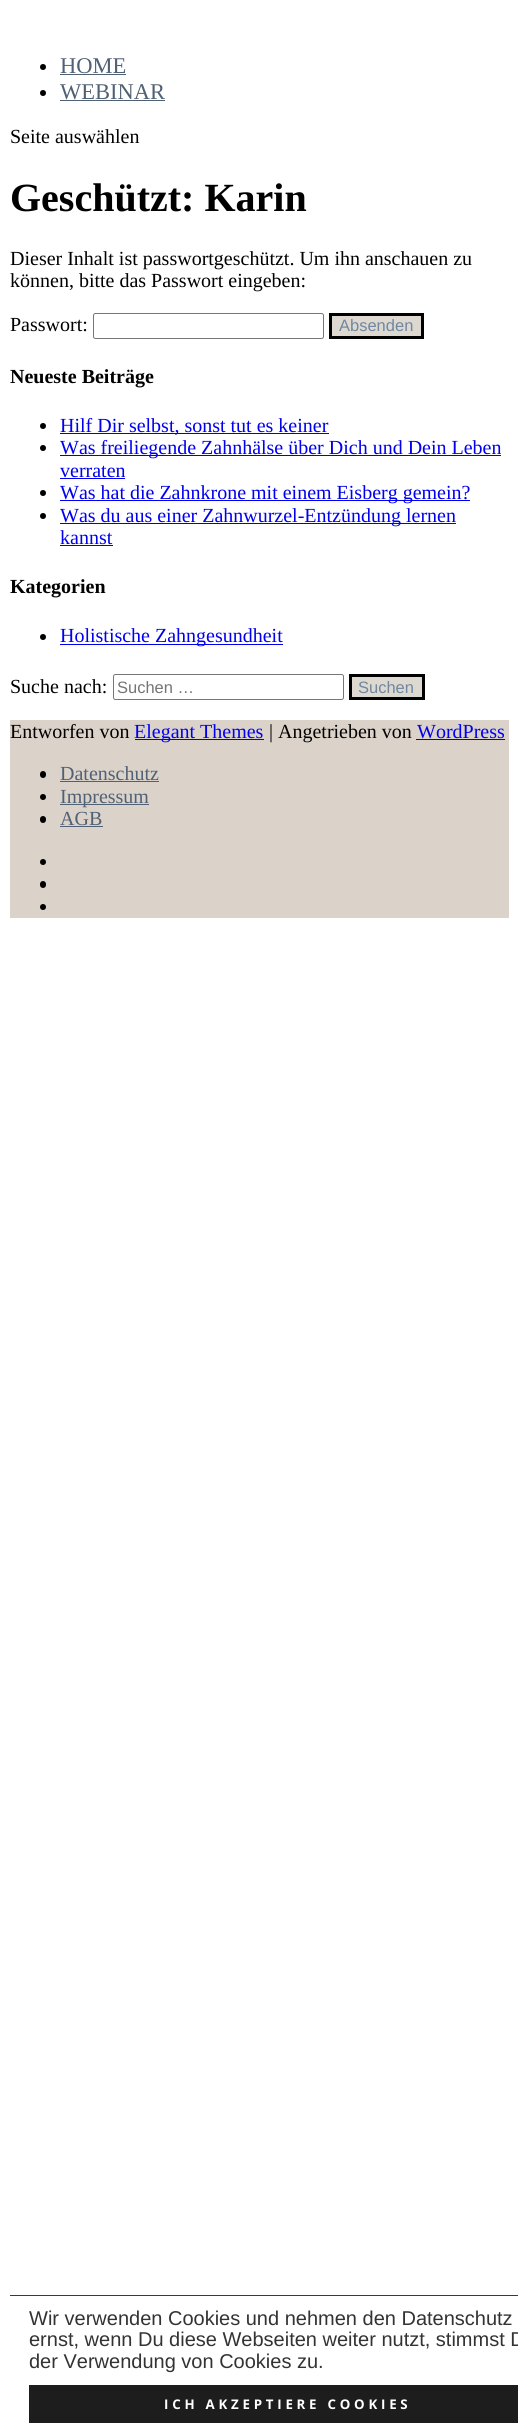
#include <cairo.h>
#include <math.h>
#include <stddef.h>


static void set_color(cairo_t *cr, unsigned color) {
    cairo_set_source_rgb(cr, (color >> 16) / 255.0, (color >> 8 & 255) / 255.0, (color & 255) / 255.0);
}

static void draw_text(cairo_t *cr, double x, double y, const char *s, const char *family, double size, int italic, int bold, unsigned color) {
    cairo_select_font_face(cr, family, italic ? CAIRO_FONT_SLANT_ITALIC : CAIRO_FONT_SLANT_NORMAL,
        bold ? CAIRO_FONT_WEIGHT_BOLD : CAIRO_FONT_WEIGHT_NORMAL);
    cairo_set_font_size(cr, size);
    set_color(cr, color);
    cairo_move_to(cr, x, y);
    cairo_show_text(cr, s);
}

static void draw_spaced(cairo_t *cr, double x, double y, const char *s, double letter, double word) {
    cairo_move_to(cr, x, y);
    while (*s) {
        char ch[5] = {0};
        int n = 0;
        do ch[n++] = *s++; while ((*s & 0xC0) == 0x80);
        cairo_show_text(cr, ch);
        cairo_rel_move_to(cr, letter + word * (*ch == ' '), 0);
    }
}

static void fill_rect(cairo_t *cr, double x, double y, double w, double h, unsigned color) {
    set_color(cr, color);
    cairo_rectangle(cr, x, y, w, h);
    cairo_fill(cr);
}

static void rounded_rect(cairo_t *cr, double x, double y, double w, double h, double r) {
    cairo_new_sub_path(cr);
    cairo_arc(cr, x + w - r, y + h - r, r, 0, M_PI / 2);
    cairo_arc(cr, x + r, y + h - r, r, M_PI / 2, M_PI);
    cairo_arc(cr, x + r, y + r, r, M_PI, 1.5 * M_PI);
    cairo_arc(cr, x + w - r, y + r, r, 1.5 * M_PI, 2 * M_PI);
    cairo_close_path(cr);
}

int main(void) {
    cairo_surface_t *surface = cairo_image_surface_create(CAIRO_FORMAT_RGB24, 518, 2434);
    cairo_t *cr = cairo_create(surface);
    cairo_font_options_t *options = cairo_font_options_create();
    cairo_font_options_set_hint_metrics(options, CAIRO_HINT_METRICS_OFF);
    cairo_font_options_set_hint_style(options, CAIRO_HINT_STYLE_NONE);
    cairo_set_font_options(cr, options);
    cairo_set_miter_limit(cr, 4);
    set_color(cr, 0xFFFFFF);
    cairo_paint(cr);
    set_color(cr, 0x000000);
    cairo_arc(cr, 43, 67, 3, 0, 2 * M_PI);
    cairo_fill(cr);
    draw_text(cr, 60, 73, "HOME", "Liberation Serif", 22.5, 0, 0, 0x506075);
    fill_rect(cr, 60, 74, 66, 1, 0x506075);
    set_color(cr, 0x000000);
    cairo_new_path(cr);
    cairo_arc(cr, 43, 93, 3, 0, 2 * M_PI);
    cairo_fill(cr);
    draw_text(cr, 60, 99, "WEBINAR", "Liberation Serif", 22.5, 0, 0, 0x506075);
    fill_rect(cr, 60, 100, 105, 1, 0x506075);
    draw_text(cr, 10, 143, "Seite auswählen", "Liberation Serif", 20, 0, 0, 0x000000);
    draw_text(cr, 10, 211, "Geschützt: Karin", "Liberation Serif", 40, 0, 1, 0x000000);
    draw_text(cr, 10, 265, "Dieser Inhalt ist passwortgeschützt. Um ihn anschauen zu", "Liberation Serif", 20, 0, 0, 0x000000);
    draw_text(cr, 10, 287, "können, bitte das Passwort eingeben:", "Liberation Serif", 20, 0, 0, 0x000000);
    draw_text(cr, 10, 331, "Passwort:", "Liberation Serif", 20, 0, 0, 0x000000);
    rounded_rect(cr, 93.5, 313.5, 230, 25, 2);
    set_color(cr, 0x767676);
    cairo_set_line_width(cr, 1);
    cairo_stroke(cr);
    set_color(cr, 0xDDD9D0);
    cairo_rectangle(cr, 330.5, 314.5, 92, 23);
    cairo_fill_preserve(cr);
    set_color(cr, 0x000000);
    cairo_set_line_width(cr, 3);
    cairo_stroke(cr);
    draw_text(cr, 339, 331, "Absenden", "Liberation Sans", 16.5, 0, 0, 0x7087A2);
    draw_text(cr, 10, 383, "Neueste Beiträge", "Liberation Serif", 20, 0, 1, 0x000000);
    cairo_new_path(cr);
    cairo_arc(cr, 43, 426, 3, 0, 2 * M_PI);
    cairo_fill(cr);
    fill_rect(cr, 60, 433, 269, 1, 0x0000EE);
    draw_text(cr, 60, 432, "Hilf Dir selbst, sonst tut es keiner", "Liberation Serif", 20, 0, 0, 0x0000EE);
    set_color(cr, 0x000000);
    cairo_new_path(cr);
    cairo_arc(cr, 43, 448, 3, 0, 2 * M_PI);
    cairo_fill(cr);
    fill_rect(cr, 60, 455, 441, 1, 0x0000EE);
    draw_text(cr, 60, 454, "Was freiliegende Zahnhälse über Dich und Dein Leben", "Liberation Serif", 20, 0, 0, 0x0000EE);
    draw_text(cr, 60, 477, "verraten", "Liberation Serif", 20, 0, 0, 0x0000EE);
    fill_rect(cr, 60, 478, 65, 1, 0x0000EE);
    set_color(cr, 0x000000);
    cairo_new_path(cr);
    cairo_arc(cr, 43, 493, 3, 0, 2 * M_PI);
    cairo_fill(cr);
    fill_rect(cr, 60, 500, 410, 1, 0x0000EE);
    draw_text(cr, 60, 499, "Was hat die Zahnkrone mit einem Eisberg gemein?", "Liberation Serif", 20, 0, 0, 0x0000EE);
    set_color(cr, 0x000000);
    cairo_new_path(cr);
    cairo_arc(cr, 43, 516, 3, 0, 2 * M_PI);
    cairo_fill(cr);
    fill_rect(cr, 60, 523, 396, 1, 0x0000EE);
    draw_text(cr, 60, 522, "Was du aus einer Zahnwurzel-Entzündung lernen", "Liberation Serif", 20, 0, 0, 0x0000EE);
    draw_text(cr, 60, 544, "kannst", "Liberation Serif", 20, 0, 0, 0x0000EE);
    fill_rect(cr, 60, 545, 53, 1, 0x0000EE);
    draw_text(cr, 10, 593, "Kategorien", "Liberation Serif", 20, 0, 1, 0x000000);
    cairo_new_path(cr);
    cairo_arc(cr, 43, 637, 3, 0, 2 * M_PI);
    cairo_fill(cr);
    fill_rect(cr, 60, 644, 223, 1, 0x0000EE);
    draw_text(cr, 60, 642, "Holistische Zahngesundheit", "Liberation Serif", 20, 0, 0, 0x0000EE);
    draw_text(cr, 10, 693, "Suche nach:", "Liberation Serif", 20, 0, 0, 0x000000);
    rounded_rect(cr, 113.5, 674.5, 230, 25, 2);
    set_color(cr, 0x767676);
    cairo_set_line_width(cr, 1);
    cairo_stroke(cr);
    draw_text(cr, 117, 693, "Suchen …", "Liberation Sans", 16.5, 0, 0, 0x757575);
    set_color(cr, 0xDDD9D0);
    cairo_rectangle(cr, 350.5, 675.5, 73, 23);
    cairo_fill_preserve(cr);
    set_color(cr, 0x000000);
    cairo_set_line_width(cr, 3);
    cairo_stroke(cr);
    draw_text(cr, 358, 693, "Suchen", "Liberation Sans", 16.5, 0, 0, 0x7087A2);
    fill_rect(cr, 10, 720, 499, 198, 0xDBD3CA);
    draw_text(cr, 10, 738, "Entworfen von", "Liberation Serif", 20, 0, 0, 0x000000);
    fill_rect(cr, 135, 739, 129, 1, 0x0000EE);
    draw_text(cr, 134, 738, "Elegant Themes", "Liberation Serif", 20, 0, 0, 0x0000EE);
    draw_text(cr, 269, 738, "| Angetrieben von", "Liberation Serif", 20, 0, 0, 0x000000);
    draw_text(cr, 417, 738, "WordPress", "Liberation Serif", 20, 0, 0, 0x0000EE);
    fill_rect(cr, 416, 739, 89, 1, 0x0000EE);
    set_color(cr, 0x000000);
    rounded_rect(cr, 40, 771, 6, 7, 3);
    cairo_fill(cr);
    draw_text(cr, 60, 780, "Datenschutz", "Liberation Serif", 20, 0, 0, 0x506075);
    fill_rect(cr, 60, 781, 99, 1, 0x506075);
    set_color(cr, 0x000000);
    cairo_new_path(cr);
    cairo_arc(cr, 43, 797, 3, 0, 2 * M_PI);
    cairo_fill(cr);
    fill_rect(cr, 60, 804, 89, 1, 0x506075);
    draw_text(cr, 60, 803, "Impressum", "Liberation Serif", 20, 0, 0, 0x506075);
    set_color(cr, 0x000000);
    rounded_rect(cr, 40, 816, 6, 7, 3);
    cairo_fill(cr);
    draw_text(cr, 60, 825, "AGB", "Liberation Serif", 20, 0, 0, 0x506075);
    fill_rect(cr, 60, 826, 43, 1, 0x506075);
    set_color(cr, 0x000000);
    cairo_new_path(cr);
    cairo_arc(cr, 43, 862, 3, 0, 2 * M_PI);
    cairo_fill(cr);
    rounded_rect(cr, 40, 881, 6, 7, 3);
    cairo_fill(cr);
    cairo_arc(cr, 43, 907, 3, 0, 2 * M_PI);
    cairo_fill(cr);
    fill_rect(cr, 10, 2295, 508, 1, 0x3B3939);
    draw_text(cr, 29, 2325, "Wir verwenden Cookies und nehmen den Datenschutz", "Liberation Sans", 20, 0, 0, 0x333333);
    draw_text(cr, 29, 2346, "ernst, wenn Du diese Webseiten weiter nutzt, stimmst D", "Liberation Sans", 20, 0, 0, 0x333333);
    draw_text(cr, 29, 2368, "der Verwendung von Cookies zu.", "Liberation Sans", 20, 0, 0, 0x333333);
    fill_rect(cr, 29, 2385, 489, 38, 0x1D1D1D);
    cairo_select_font_face(cr, "Open Sans", CAIRO_FONT_SLANT_NORMAL, CAIRO_FONT_WEIGHT_BOLD);
    cairo_set_font_size(cr, 13.3);
    set_color(cr, 0xFFFFFF);
    draw_spaced(cr, 164, 2409, "ICH AKZEPTIERE COOKIES", 3.75, 0);
    cairo_surface_write_to_png(surface, "output.png");
    cairo_font_options_destroy(options);
    cairo_destroy(cr);
    cairo_surface_destroy(surface);
    return 0;
}
